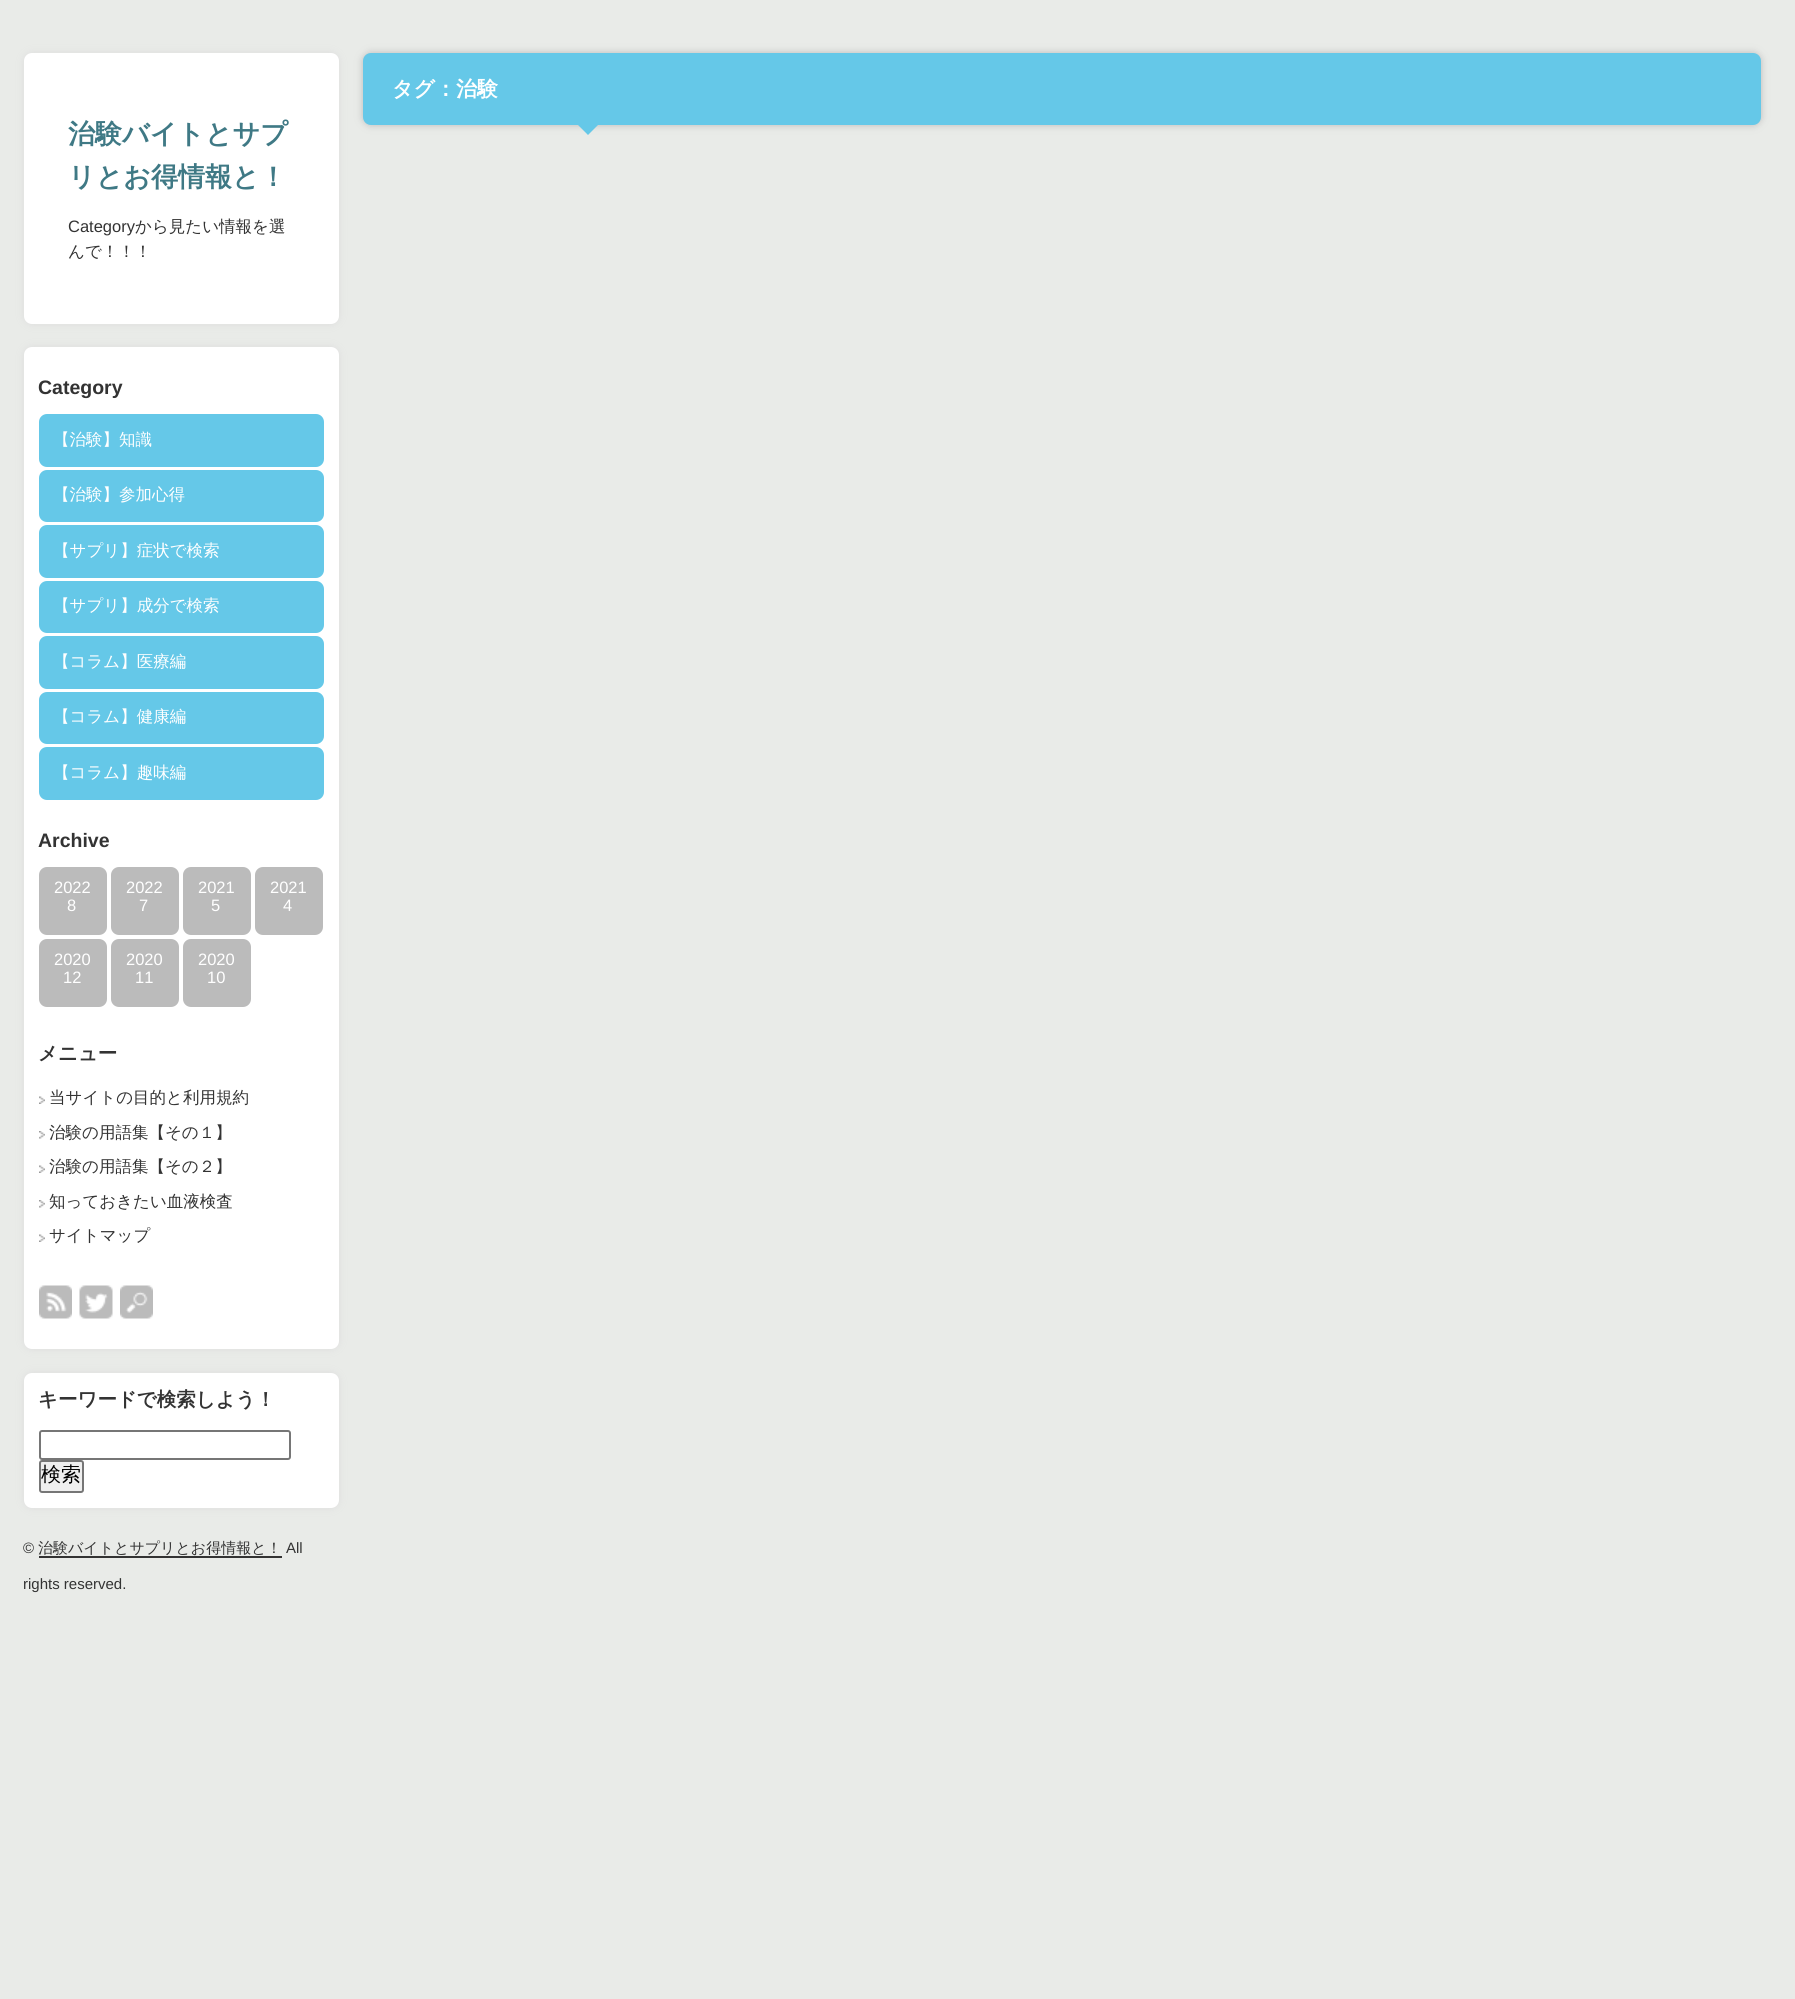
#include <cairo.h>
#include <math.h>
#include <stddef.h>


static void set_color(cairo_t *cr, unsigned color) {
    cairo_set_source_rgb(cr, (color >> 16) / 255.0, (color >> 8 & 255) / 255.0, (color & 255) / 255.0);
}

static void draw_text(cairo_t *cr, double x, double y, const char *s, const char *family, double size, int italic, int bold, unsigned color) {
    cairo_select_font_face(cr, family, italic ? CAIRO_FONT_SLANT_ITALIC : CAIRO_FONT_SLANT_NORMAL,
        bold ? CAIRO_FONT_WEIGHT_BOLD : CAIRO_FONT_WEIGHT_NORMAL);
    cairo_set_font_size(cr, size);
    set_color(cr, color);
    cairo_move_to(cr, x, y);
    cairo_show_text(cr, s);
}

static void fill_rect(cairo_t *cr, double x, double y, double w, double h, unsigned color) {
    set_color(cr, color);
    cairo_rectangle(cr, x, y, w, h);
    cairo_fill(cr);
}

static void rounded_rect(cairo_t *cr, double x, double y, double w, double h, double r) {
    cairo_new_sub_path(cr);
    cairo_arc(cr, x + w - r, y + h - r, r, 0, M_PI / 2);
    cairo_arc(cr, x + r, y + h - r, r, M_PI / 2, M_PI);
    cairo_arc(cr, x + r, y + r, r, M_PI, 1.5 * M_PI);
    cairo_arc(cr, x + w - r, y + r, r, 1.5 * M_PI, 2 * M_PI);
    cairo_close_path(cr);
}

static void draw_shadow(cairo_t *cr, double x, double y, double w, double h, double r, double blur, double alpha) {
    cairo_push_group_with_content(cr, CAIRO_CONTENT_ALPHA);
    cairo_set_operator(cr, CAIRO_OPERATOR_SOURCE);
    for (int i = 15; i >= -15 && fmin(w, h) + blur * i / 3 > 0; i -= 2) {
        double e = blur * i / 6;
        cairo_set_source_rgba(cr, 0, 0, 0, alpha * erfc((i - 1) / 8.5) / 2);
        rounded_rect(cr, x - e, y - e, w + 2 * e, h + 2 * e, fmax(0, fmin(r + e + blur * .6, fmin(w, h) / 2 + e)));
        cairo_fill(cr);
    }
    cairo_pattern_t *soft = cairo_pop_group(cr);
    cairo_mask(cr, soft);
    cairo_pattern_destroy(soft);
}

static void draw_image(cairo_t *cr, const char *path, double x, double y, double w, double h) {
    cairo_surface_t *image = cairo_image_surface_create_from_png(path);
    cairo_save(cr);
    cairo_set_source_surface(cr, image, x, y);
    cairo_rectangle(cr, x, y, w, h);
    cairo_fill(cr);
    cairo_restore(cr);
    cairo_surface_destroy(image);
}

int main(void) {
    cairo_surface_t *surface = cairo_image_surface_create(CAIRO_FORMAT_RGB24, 1795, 1999);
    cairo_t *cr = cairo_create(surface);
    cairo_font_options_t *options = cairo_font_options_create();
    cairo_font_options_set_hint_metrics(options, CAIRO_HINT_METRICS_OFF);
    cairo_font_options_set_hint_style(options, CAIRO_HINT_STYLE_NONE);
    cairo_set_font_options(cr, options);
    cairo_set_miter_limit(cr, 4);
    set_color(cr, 0xE9EBE8);
    cairo_paint(cr);
    set_color(cr, 0xBBBBBB);
    draw_shadow(cr, 363, 53, 1398, 72, 8, 4, 1);
    set_color(cr, 0x65C8E8);
    rounded_rect(cr, 363, 53, 1398, 72, 8);
    cairo_fill(cr);
    draw_text(cr, 392, 96, "タグ：治験", "WenQuanYi Zen Hei", 21, 0, 1, 0xFFFFFF);
    set_color(cr, 0x65C8E8);
    cairo_new_path(cr);
    cairo_move_to(cr, 573, 120);
    cairo_line_to(cr, 603, 120);
    cairo_line_to(cr, 588, 135);
    cairo_close_path(cr);
    cairo_fill(cr);
    set_color(cr, 0xDDDDDD);
    draw_shadow(cr, 24, 53, 315, 271, 8, 4, 1);
    set_color(cr, 0xFFFFFF);
    rounded_rect(cr, 24, 53, 315, 271, 8);
    cairo_fill(cr);
    draw_text(cr, 68, 143, "治験バイトとサプ", "WenQuanYi Zen Hei", 27, 0, 1, 0x3F7985);
    draw_text(cr, 68, 186, "リとお得情報と！", "WenQuanYi Zen Hei", 27, 0, 1, 0x3F7985);
    draw_text(cr, 68, 232, "Category", "Liberation Sans", 16.5, 0, 0, 0x333333);
    draw_text(cr, 135, 232, "から見たい情報を選", "WenQuanYi Zen Hei Medium", 16.5, 0, 0, 0x333333);
    draw_text(cr, 68, 257, "んで！！！", "WenQuanYi Zen Hei Medium", 16.5, 0, 0, 0x333333);
    set_color(cr, 0xDDDDDD);
    draw_shadow(cr, 24, 347, 315, 1002, 8, 4, 1);
    set_color(cr, 0xFFFFFF);
    rounded_rect(cr, 24, 347, 315, 1002, 8);
    cairo_fill(cr);
    draw_text(cr, 38, 394, "Category", "Liberation Sans", 19.5, 0, 1, 0x333333);
    set_color(cr, 0x65C8E8);
    rounded_rect(cr, 39, 414, 285, 53, 8);
    cairo_fill(cr);
    draw_text(cr, 53, 445, "【治験】知識", "WenQuanYi Zen Hei Medium", 16.5, 0, 0, 0xFFFFFF);
    set_color(cr, 0x65C8E8);
    rounded_rect(cr, 39, 470, 285, 52, 8);
    cairo_fill(cr);
    draw_text(cr, 53, 500, "【治験】参加心得", "WenQuanYi Zen Hei Medium", 16.5, 0, 0, 0xFFFFFF);
    set_color(cr, 0x65C8E8);
    rounded_rect(cr, 39, 525, 285, 53, 8);
    cairo_fill(cr);
    draw_text(cr, 53, 556, "【サプリ】症状で検索", "WenQuanYi Zen Hei Medium", 16.5, 0, 0, 0xFFFFFF);
    set_color(cr, 0x65C8E8);
    rounded_rect(cr, 39, 581, 285, 52, 8);
    cairo_fill(cr);
    draw_text(cr, 53, 611, "【サプリ】成分で検索", "WenQuanYi Zen Hei Medium", 16.5, 0, 0, 0xFFFFFF);
    set_color(cr, 0x65C8E8);
    rounded_rect(cr, 39, 636, 285, 53, 8);
    cairo_fill(cr);
    draw_text(cr, 53, 667, "【コラム】医療編", "WenQuanYi Zen Hei Medium", 16.5, 0, 0, 0xFFFFFF);
    set_color(cr, 0x65C8E8);
    rounded_rect(cr, 39, 692, 285, 52, 8);
    cairo_fill(cr);
    draw_text(cr, 53, 722, "【コラム】健康編", "WenQuanYi Zen Hei Medium", 16.5, 0, 0, 0xFFFFFF);
    set_color(cr, 0x65C8E8);
    rounded_rect(cr, 39, 747, 285, 53, 8);
    cairo_fill(cr);
    draw_text(cr, 53, 778, "【コラム】趣味編", "WenQuanYi Zen Hei Medium", 16.5, 0, 0, 0xFFFFFF);
    draw_text(cr, 38, 847, "Archive", "Liberation Sans", 19.5, 0, 1, 0x333333);
    set_color(cr, 0xBBBBBB);
    rounded_rect(cr, 39, 867, 68, 68, 8);
    cairo_fill(cr);
    draw_text(cr, 54, 893, "2022", "Liberation Sans", 16.5, 0, 0, 0xFFFFFF);
    draw_text(cr, 67, 911, "8", "Liberation Sans", 16.5, 0, 0, 0xFFFFFF);
    set_color(cr, 0xBBBBBB);
    rounded_rect(cr, 111, 867, 68, 68, 8);
    cairo_fill(cr);
    draw_text(cr, 126, 893, "2022", "Liberation Sans", 16.5, 0, 0, 0xFFFFFF);
    draw_text(cr, 139, 911, "7", "Liberation Sans", 16.5, 0, 0, 0xFFFFFF);
    set_color(cr, 0xBBBBBB);
    rounded_rect(cr, 183, 867, 68, 68, 8);
    cairo_fill(cr);
    draw_text(cr, 198, 893, "2021", "Liberation Sans", 16.5, 0, 0, 0xFFFFFF);
    draw_text(cr, 211, 911, "5", "Liberation Sans", 16.5, 0, 0, 0xFFFFFF);
    set_color(cr, 0xBBBBBB);
    rounded_rect(cr, 255, 867, 68, 68, 8);
    cairo_fill(cr);
    draw_text(cr, 270, 893, "2021", "Liberation Sans", 16.5, 0, 0, 0xFFFFFF);
    draw_text(cr, 283, 911, "4", "Liberation Sans", 16.5, 0, 0, 0xFFFFFF);
    set_color(cr, 0xBBBBBB);
    rounded_rect(cr, 39, 939, 68, 68, 8);
    cairo_fill(cr);
    draw_text(cr, 54, 965, "2020", "Liberation Sans", 16.5, 0, 0, 0xFFFFFF);
    draw_text(cr, 63, 983, "12", "Liberation Sans", 16.5, 0, 0, 0xFFFFFF);
    set_color(cr, 0xBBBBBB);
    rounded_rect(cr, 111, 939, 68, 68, 8);
    cairo_fill(cr);
    draw_text(cr, 126, 965, "2020", "Liberation Sans", 16.5, 0, 0, 0xFFFFFF);
    draw_text(cr, 135, 983, "11", "Liberation Sans", 16.5, 0, 0, 0xFFFFFF);
    set_color(cr, 0xBBBBBB);
    rounded_rect(cr, 183, 939, 68, 68, 8);
    cairo_fill(cr);
    draw_text(cr, 198, 965, "2020", "Liberation Sans", 16.5, 0, 0, 0xFFFFFF);
    draw_text(cr, 207, 983, "10", "Liberation Sans", 16.5, 0, 0, 0xFFFFFF);
    draw_text(cr, 38, 1060, "メニュー", "WenQuanYi Zen Hei", 19.5, 0, 1, 0x333333);
    draw_image(cr, "assets/img1.png", 39, 1096, 6, 8);
    draw_text(cr, 49, 1103, "当サイトの目的と利用規約", "WenQuanYi Zen Hei Medium", 16.5, 0, 0, 0x333333);
    draw_image(cr, "assets/img2.png", 39, 1131, 6, 8);
    draw_text(cr, 49, 1138, "治験の用語集【その１】", "WenQuanYi Zen Hei Medium", 16.5, 0, 0, 0x333333);
    draw_image(cr, "assets/img1.png", 39, 1165, 6, 8);
    draw_text(cr, 49, 1172, "治験の用語集【その２】", "WenQuanYi Zen Hei Medium", 16.5, 0, 0, 0x333333);
    draw_image(cr, "assets/img2.png", 39, 1200, 6, 8);
    draw_text(cr, 49, 1207, "知っておきたい血液検査", "WenQuanYi Zen Hei Medium", 16.5, 0, 0, 0x333333);
    draw_image(cr, "assets/img1.png", 39, 1234, 6, 8);
    draw_text(cr, 49, 1241, "サイトマップ", "WenQuanYi Zen Hei Medium", 16.5, 0, 0, 0x333333);
    draw_image(cr, "assets/img3.png", 39, 1285, 33, 34);
    draw_image(cr, "assets/img4.png", 79, 1285, 34, 34);
    draw_image(cr, "assets/img5.png", 120, 1285, 33, 34);
    set_color(cr, 0xDDDDDD);
    draw_shadow(cr, 24, 1373, 315, 135, 8, 4, 1);
    set_color(cr, 0xFFFFFF);
    rounded_rect(cr, 24, 1373, 315, 135, 8);
    cairo_fill(cr);
    draw_text(cr, 38, 1406, "キーワードで検索しよう！", "WenQuanYi Zen Hei", 19.5, 0, 1, 0x333333);
    rounded_rect(cr, 40, 1431, 250, 28, 2);
    set_color(cr, 0x767676);
    cairo_stroke(cr);
    set_color(cr, 0xEFEFEF);
    rounded_rect(cr, 40, 1461, 43, 31, 2);
    cairo_fill_preserve(cr);
    set_color(cr, 0x767676);
    cairo_stroke(cr);
    draw_text(cr, 41, 1481, "検索", "WenQuanYi Zen Hei Medium", 20, 0, 0, 0x000000);
    draw_text(cr, 23, 1553, "©", "Liberation Sans", 15, 0, 0, 0x333333);
    draw_text(cr, 38, 1553, "治験バイトとサプリとお得情報と！", "WenQuanYi Zen Hei Medium", 15, 0, 0, 0x333333);
    fill_rect(cr, 39, 1556, 243, 2, 0x333333);
    draw_text(cr, 286, 1553, "All", "Liberation Sans", 15, 0, 0, 0x333333);
    draw_text(cr, 23, 1589, "rights reserved.", "Liberation Sans", 15, 0, 0, 0x333333);
    cairo_surface_write_to_png(surface, "output.png");
    cairo_font_options_destroy(options);
    cairo_destroy(cr);
    cairo_surface_destroy(surface);
    return 0;
}
